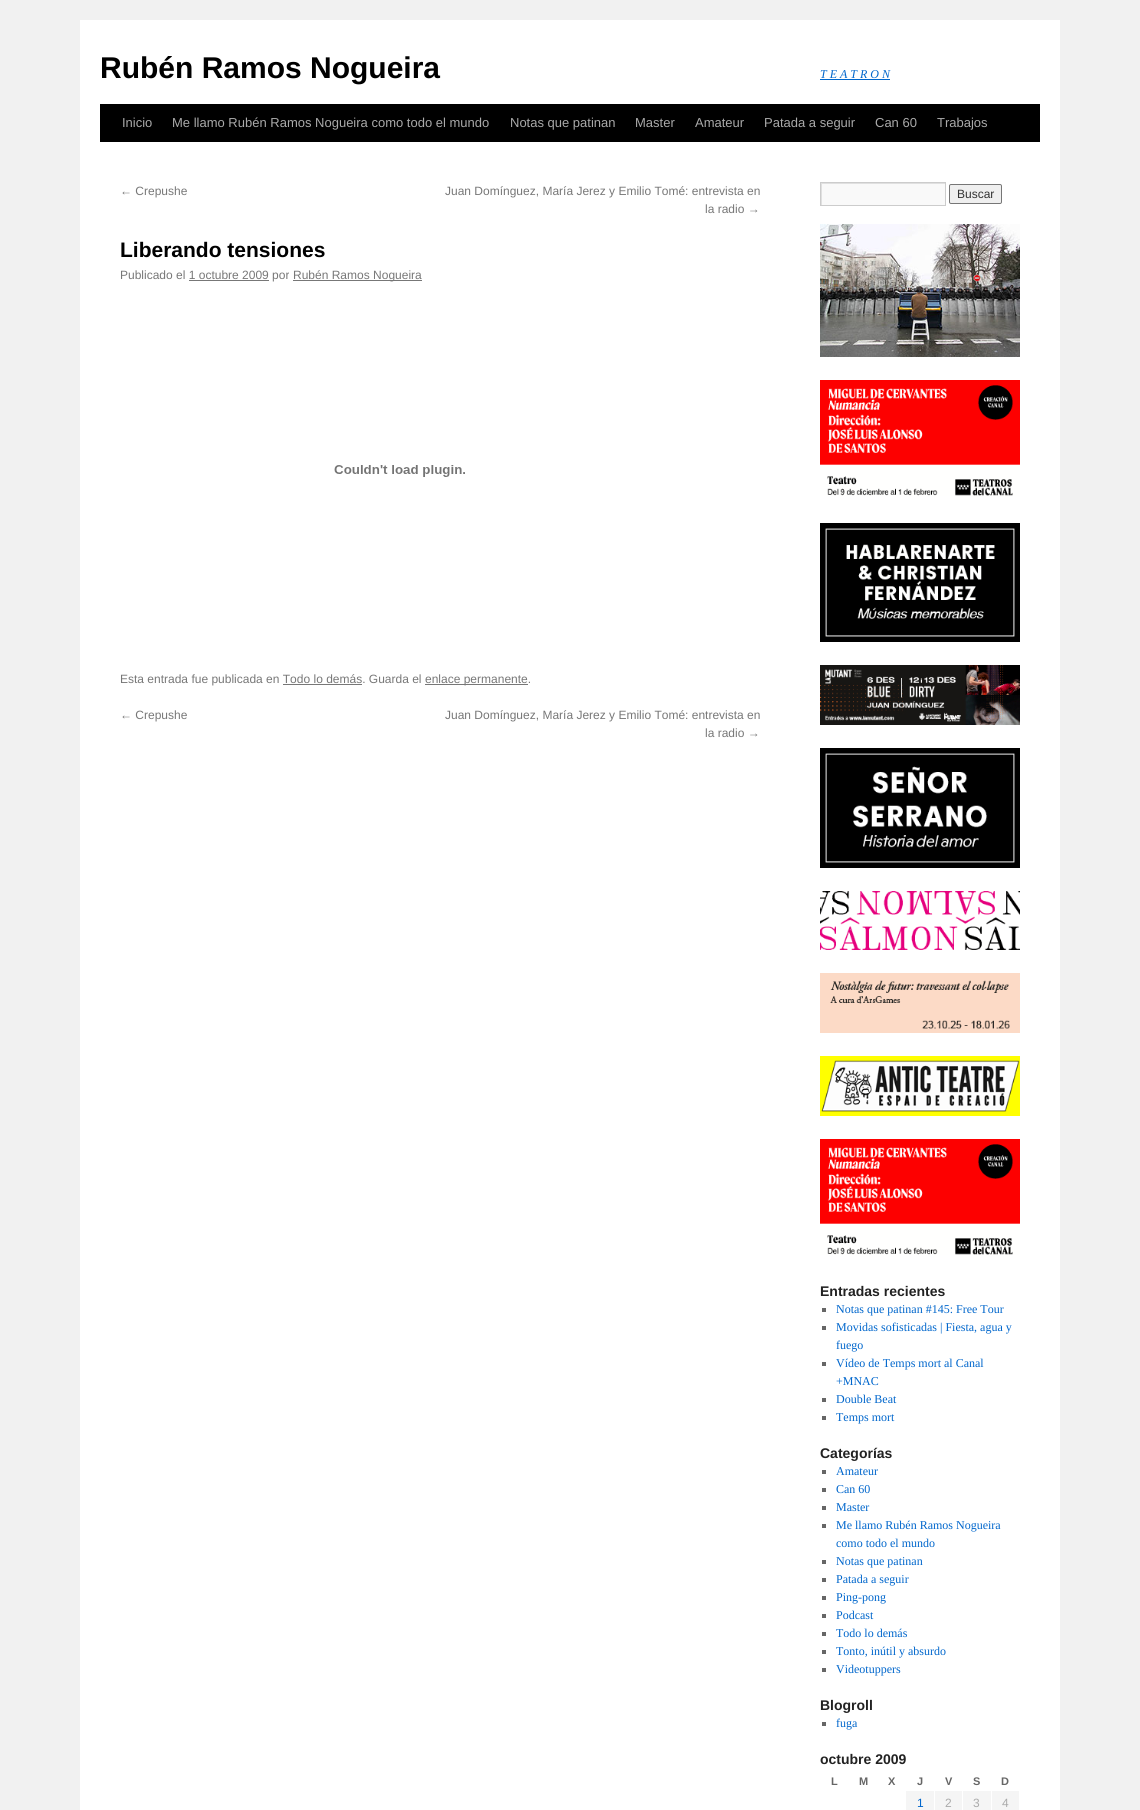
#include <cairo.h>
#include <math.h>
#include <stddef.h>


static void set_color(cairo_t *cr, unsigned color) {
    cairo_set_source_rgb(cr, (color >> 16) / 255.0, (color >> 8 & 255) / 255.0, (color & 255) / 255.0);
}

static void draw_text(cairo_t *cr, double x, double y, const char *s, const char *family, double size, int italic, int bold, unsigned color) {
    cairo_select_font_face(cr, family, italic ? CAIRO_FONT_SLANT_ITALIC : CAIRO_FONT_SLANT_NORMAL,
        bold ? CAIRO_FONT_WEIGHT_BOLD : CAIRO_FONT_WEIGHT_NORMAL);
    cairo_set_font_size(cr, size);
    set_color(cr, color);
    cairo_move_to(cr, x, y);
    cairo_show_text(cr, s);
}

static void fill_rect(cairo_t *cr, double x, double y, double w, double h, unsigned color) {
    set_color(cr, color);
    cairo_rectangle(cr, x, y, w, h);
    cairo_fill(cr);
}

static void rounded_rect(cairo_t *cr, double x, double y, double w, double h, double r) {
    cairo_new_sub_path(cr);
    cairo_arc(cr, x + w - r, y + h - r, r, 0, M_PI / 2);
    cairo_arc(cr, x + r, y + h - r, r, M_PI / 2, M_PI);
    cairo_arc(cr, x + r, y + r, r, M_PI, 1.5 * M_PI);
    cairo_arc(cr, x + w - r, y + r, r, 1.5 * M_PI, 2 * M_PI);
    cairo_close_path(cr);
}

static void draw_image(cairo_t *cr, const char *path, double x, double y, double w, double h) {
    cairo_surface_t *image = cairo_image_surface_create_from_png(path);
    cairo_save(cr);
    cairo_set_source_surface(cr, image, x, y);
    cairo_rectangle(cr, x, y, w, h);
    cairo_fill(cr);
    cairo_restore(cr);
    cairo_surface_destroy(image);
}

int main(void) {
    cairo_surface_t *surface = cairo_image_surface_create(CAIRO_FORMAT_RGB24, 1140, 1810);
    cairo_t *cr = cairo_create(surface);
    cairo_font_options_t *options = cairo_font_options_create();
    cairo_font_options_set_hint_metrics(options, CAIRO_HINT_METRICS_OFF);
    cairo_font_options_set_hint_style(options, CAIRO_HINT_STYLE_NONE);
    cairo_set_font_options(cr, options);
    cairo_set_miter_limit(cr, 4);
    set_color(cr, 0xF1F1F1);
    cairo_paint(cr);
    fill_rect(cr, 80, 20, 980, 1790, 0xFFFFFF);
    draw_text(cr, 100, 78, "Rubén Ramos Nogueira", "Liberation Sans", 30, 0, 1, 0x000000);
    draw_text(cr, 820, 78, "T E A T R O N", "Liberation Serif", 12, 1, 0, 0x0066CC);
    fill_rect(cr, 820, 79, 70, 1, 0x0066CC);
    fill_rect(cr, 100, 104, 940, 38, 0x000000);
    draw_text(cr, 122, 127, "Inicio", "Liberation Sans", 13, 0, 0, 0xAAAAAA);
    draw_text(cr, 172, 127, "Me llamo Rubén Ramos Nogueira como todo el mundo", "Liberation Sans", 13, 0, 0, 0xAAAAAA);
    draw_text(cr, 510, 127, "Notas que patinan", "Liberation Sans", 13, 0, 0, 0xAAAAAA);
    draw_text(cr, 635, 127, "Master", "Liberation Sans", 13, 0, 0, 0xAAAAAA);
    draw_text(cr, 695, 127, "Amateur", "Liberation Sans", 13, 0, 0, 0xAAAAAA);
    draw_text(cr, 764, 127, "Patada a seguir", "Liberation Sans", 13, 0, 0, 0xAAAAAA);
    draw_text(cr, 875, 127, "Can 60", "Liberation Sans", 13, 0, 0, 0xAAAAAA);
    draw_text(cr, 937, 127, "Trabajos", "Liberation Sans", 13, 0, 0, 0xAAAAAA);
    draw_text(cr, 120, 195, "← Crepushe", "Liberation Sans", 12, 0, 0, 0x777777);
    draw_text(cr, 445, 195, "Juan Domínguez, María Jerez y Emilio Tomé: entrevista en", "Liberation Sans", 12, 0, 0, 0x777777);
    draw_text(cr, 705, 213, "la radio →", "Liberation Sans", 12, 0, 0, 0x777777);
    draw_text(cr, 120, 257, "Liberando tensiones", "Liberation Sans", 21, 0, 1, 0x000000);
    draw_text(cr, 120, 279, "Publicado el 1 octubre 2009 por", "Liberation Sans", 12, 0, 0, 0x777777);
    fill_rect(cr, 293, 280, 129, 1, 0x777777);
    draw_text(cr, 293, 279, "Rubén Ramos Nogueira", "Liberation Sans", 12, 0, 0, 0x777777);
    fill_rect(cr, 189, 280, 80, 1, 0x777777);
    draw_image(cr, "assets/img1.png", 334, 465, 131, 12);
    draw_text(cr, 120, 683, "Esta entrada fue publicada en Todo lo demás. Guarda el", "Liberation Sans", 12, 0, 0, 0x777777);
    fill_rect(cr, 425, 684, 103, 1, 0x777777);
    draw_text(cr, 425, 683, "enlace permanente.", "Liberation Sans", 12, 0, 0, 0x777777);
    fill_rect(cr, 283, 684, 79, 1, 0x777777);
    draw_text(cr, 120, 719, "← Crepushe", "Liberation Sans", 12, 0, 0, 0x777777);
    draw_text(cr, 445, 719, "Juan Domínguez, María Jerez y Emilio Tomé: entrevista en", "Liberation Sans", 12, 0, 0, 0x777777);
    draw_text(cr, 705, 737, "la radio →", "Liberation Sans", 12, 0, 0, 0x777777);
    fill_rect(cr, 822, 184, 123, 21, 0xF9F9F9);
    cairo_save(cr);
    cairo_rectangle(cr, 821, 183, 124, 22);
    cairo_clip(cr);
    set_color(cr, 0xE0E0E0);
    cairo_set_fill_rule(cr, CAIRO_FILL_RULE_EVEN_ODD);
    cairo_new_path(cr);
    cairo_move_to(cr, 722, 84);
    cairo_line_to(cr, 1044, 84);
    cairo_line_to(cr, 1044, 304);
    cairo_line_to(cr, 722, 304);
    cairo_close_path(cr);
    cairo_move_to(cr, 822, 184);
    cairo_line_to(cr, 946, 184);
    cairo_line_to(cr, 946, 206);
    cairo_line_to(cr, 822, 206);
    cairo_close_path(cr);
    cairo_fill(cr);
    cairo_restore(cr);
    cairo_rectangle(cr, 820.5, 182.5, 125, 23);
    set_color(cr, 0xCCCCCC);
    cairo_set_line_width(cr, 1);
    cairo_stroke(cr);
    set_color(cr, 0xEFEFEF);
    rounded_rect(cr, 949.5, 184.5, 52, 19, 1.5);
    cairo_fill_preserve(cr);
    set_color(cr, 0x767676);
    cairo_stroke(cr);
    draw_text(cr, 957, 198, "Buscar", "Liberation Sans", 12, 0, 0, 0x333333);
    draw_image(cr, "assets/img2.png", 820, 224, 200, 133);
    draw_image(cr, "assets/img3.png", 820, 380, 200, 116);
    draw_image(cr, "assets/img4.png", 820, 523, 200, 119);
    draw_image(cr, "assets/img5.png", 820, 665, 200, 60);
    draw_image(cr, "assets/img6.png", 820, 748, 200, 120);
    draw_image(cr, "assets/img7.png", 820, 891, 200, 59);
    draw_image(cr, "assets/img8.png", 820, 973, 200, 60);
    draw_image(cr, "assets/img9.png", 820, 1056, 200, 60);
    draw_image(cr, "assets/img3.png", 820, 1139, 200, 116);
    draw_text(cr, 820, 1296, "Entradas recientes", "Liberation Sans", 14, 0, 1, 0x222222);
    fill_rect(cr, 822, 1308, 4, 4, 0x666666);
    draw_text(cr, 836, 1313, "Notas que patinan #145: Free Tour", "Liberation Serif", 12, 0, 0, 0x0066CC);
    fill_rect(cr, 822, 1326, 4, 4, 0x666666);
    draw_text(cr, 836, 1331, "Movidas sofisticadas | Fiesta, agua y", "Liberation Serif", 12, 0, 0, 0x0066CC);
    draw_text(cr, 836, 1349, "fuego", "Liberation Serif", 12, 0, 0, 0x0066CC);
    fill_rect(cr, 822, 1362, 4, 4, 0x666666);
    draw_text(cr, 836, 1367, "Vídeo de Temps mort al Canal", "Liberation Serif", 12, 0, 0, 0x0066CC);
    draw_text(cr, 836, 1385, "+MNAC", "Liberation Serif", 12, 0, 0, 0x0066CC);
    fill_rect(cr, 822, 1398, 4, 4, 0x666666);
    draw_text(cr, 836, 1403, "Double Beat", "Liberation Serif", 12, 0, 0, 0x0066CC);
    fill_rect(cr, 822, 1416, 4, 4, 0x666666);
    draw_text(cr, 836, 1421, "Temps mort", "Liberation Serif", 12, 0, 0, 0x0066CC);
    draw_text(cr, 820, 1458, "Categorías", "Liberation Sans", 14, 0, 1, 0x222222);
    fill_rect(cr, 822, 1470, 4, 4, 0x666666);
    draw_text(cr, 836, 1475, "Amateur", "Liberation Serif", 12, 0, 0, 0x0066CC);
    fill_rect(cr, 822, 1488, 4, 4, 0x666666);
    draw_text(cr, 836, 1493, "Can 60", "Liberation Serif", 12, 0, 0, 0x0066CC);
    fill_rect(cr, 822, 1506, 4, 4, 0x666666);
    draw_text(cr, 836, 1511, "Master", "Liberation Serif", 12, 0, 0, 0x0066CC);
    fill_rect(cr, 822, 1524, 4, 4, 0x666666);
    draw_text(cr, 836, 1529, "Me llamo Rubén Ramos Nogueira", "Liberation Serif", 12, 0, 0, 0x0066CC);
    draw_text(cr, 836, 1547, "como todo el mundo", "Liberation Serif", 12, 0, 0, 0x0066CC);
    fill_rect(cr, 822, 1560, 4, 4, 0x666666);
    draw_text(cr, 836, 1565, "Notas que patinan", "Liberation Serif", 12, 0, 0, 0x0066CC);
    fill_rect(cr, 822, 1578, 4, 4, 0x666666);
    draw_text(cr, 836, 1583, "Patada a seguir", "Liberation Serif", 12, 0, 0, 0x0066CC);
    fill_rect(cr, 822, 1596, 4, 4, 0x666666);
    draw_text(cr, 836, 1601, "Ping-pong", "Liberation Serif", 12, 0, 0, 0x0066CC);
    fill_rect(cr, 822, 1614, 4, 4, 0x666666);
    draw_text(cr, 836, 1619, "Podcast", "Liberation Serif", 12, 0, 0, 0x0066CC);
    fill_rect(cr, 822, 1632, 4, 4, 0x666666);
    draw_text(cr, 836, 1637, "Todo lo demás", "Liberation Serif", 12, 0, 0, 0x0066CC);
    fill_rect(cr, 822, 1650, 4, 4, 0x666666);
    draw_text(cr, 836, 1655, "Tonto, inútil y absurdo", "Liberation Serif", 12, 0, 0, 0x0066CC);
    fill_rect(cr, 822, 1668, 4, 4, 0x666666);
    draw_text(cr, 836, 1673, "Videotuppers", "Liberation Serif", 12, 0, 0, 0x0066CC);
    draw_text(cr, 820, 1710, "Blogroll", "Liberation Sans", 14, 0, 1, 0x222222);
    fill_rect(cr, 822, 1722, 4, 4, 0x666666);
    draw_text(cr, 836, 1727, "fuga", "Liberation Serif", 12, 0, 0, 0x0066CC);
    draw_text(cr, 820, 1764, "octubre 2009", "Liberation Sans", 14, 0, 1, 0x222222);
    draw_text(cr, 831, 1785, "L", "Liberation Sans", 11, 0, 1, 0x666666);
    draw_text(cr, 859, 1785, "M", "Liberation Sans", 11, 0, 1, 0x666666);
    draw_text(cr, 888, 1785, "X", "Liberation Sans", 11, 0, 1, 0x666666);
    draw_text(cr, 917, 1785, "J", "Liberation Sans", 11, 0, 1, 0x666666);
    draw_text(cr, 945, 1785, "V", "Liberation Sans", 11, 0, 1, 0x666666);
    draw_text(cr, 973, 1785, "S", "Liberation Sans", 11, 0, 1, 0x666666);
    draw_text(cr, 1001, 1785, "D", "Liberation Sans", 11, 0, 1, 0x666666);
    fill_rect(cr, 906, 1791, 28, 19, 0xF5F5F5);
    draw_text(cr, 917, 1807, "1", "Liberation Sans", 12, 0, 0, 0x0066CC);
    fill_rect(cr, 935, 1791, 27, 19, 0xF5F5F5);
    draw_text(cr, 945, 1807, "2", "Liberation Sans", 12, 0, 0, 0xAAAAAA);
    fill_rect(cr, 963, 1791, 28, 19, 0xF5F5F5);
    draw_text(cr, 973, 1807, "3", "Liberation Sans", 12, 0, 0, 0xAAAAAA);
    fill_rect(cr, 992, 1791, 27, 19, 0xF5F5F5);
    draw_text(cr, 1002, 1807, "4", "Liberation Sans", 12, 0, 0, 0xAAAAAA);
    cairo_surface_write_to_png(surface, "output.png");
    cairo_font_options_destroy(options);
    cairo_destroy(cr);
    cairo_surface_destroy(surface);
    return 0;
}
